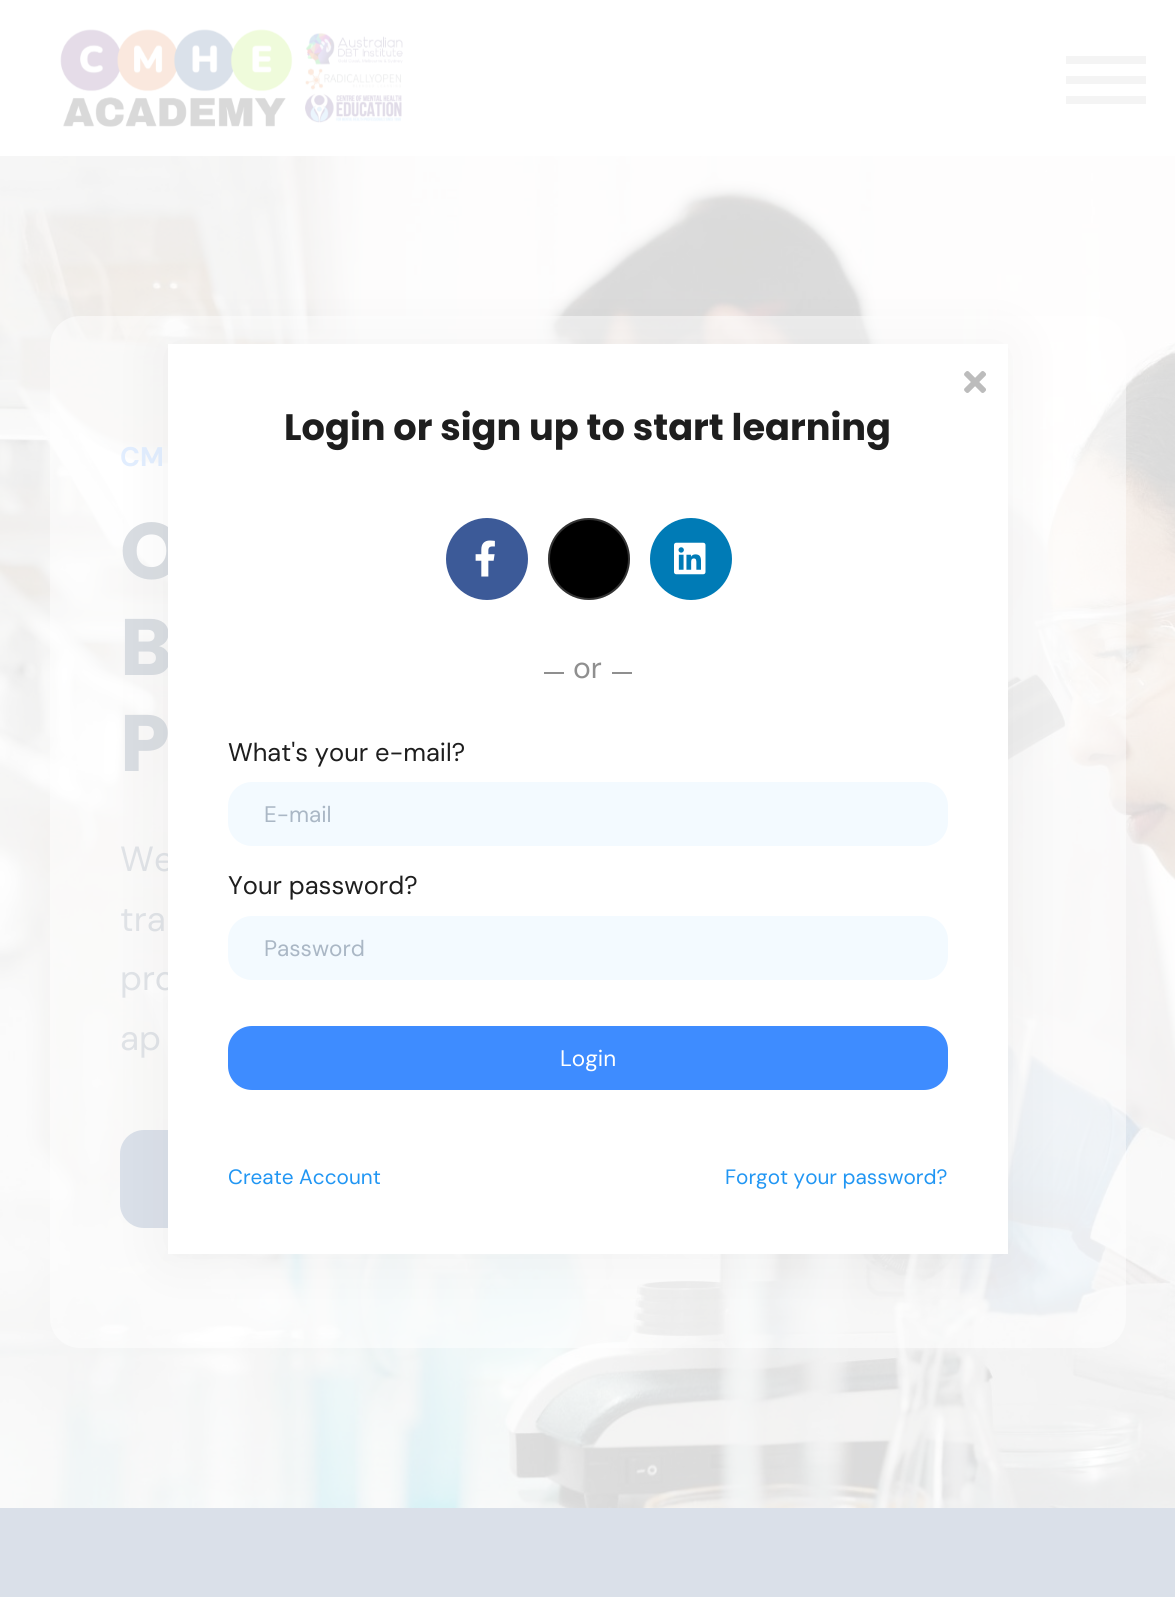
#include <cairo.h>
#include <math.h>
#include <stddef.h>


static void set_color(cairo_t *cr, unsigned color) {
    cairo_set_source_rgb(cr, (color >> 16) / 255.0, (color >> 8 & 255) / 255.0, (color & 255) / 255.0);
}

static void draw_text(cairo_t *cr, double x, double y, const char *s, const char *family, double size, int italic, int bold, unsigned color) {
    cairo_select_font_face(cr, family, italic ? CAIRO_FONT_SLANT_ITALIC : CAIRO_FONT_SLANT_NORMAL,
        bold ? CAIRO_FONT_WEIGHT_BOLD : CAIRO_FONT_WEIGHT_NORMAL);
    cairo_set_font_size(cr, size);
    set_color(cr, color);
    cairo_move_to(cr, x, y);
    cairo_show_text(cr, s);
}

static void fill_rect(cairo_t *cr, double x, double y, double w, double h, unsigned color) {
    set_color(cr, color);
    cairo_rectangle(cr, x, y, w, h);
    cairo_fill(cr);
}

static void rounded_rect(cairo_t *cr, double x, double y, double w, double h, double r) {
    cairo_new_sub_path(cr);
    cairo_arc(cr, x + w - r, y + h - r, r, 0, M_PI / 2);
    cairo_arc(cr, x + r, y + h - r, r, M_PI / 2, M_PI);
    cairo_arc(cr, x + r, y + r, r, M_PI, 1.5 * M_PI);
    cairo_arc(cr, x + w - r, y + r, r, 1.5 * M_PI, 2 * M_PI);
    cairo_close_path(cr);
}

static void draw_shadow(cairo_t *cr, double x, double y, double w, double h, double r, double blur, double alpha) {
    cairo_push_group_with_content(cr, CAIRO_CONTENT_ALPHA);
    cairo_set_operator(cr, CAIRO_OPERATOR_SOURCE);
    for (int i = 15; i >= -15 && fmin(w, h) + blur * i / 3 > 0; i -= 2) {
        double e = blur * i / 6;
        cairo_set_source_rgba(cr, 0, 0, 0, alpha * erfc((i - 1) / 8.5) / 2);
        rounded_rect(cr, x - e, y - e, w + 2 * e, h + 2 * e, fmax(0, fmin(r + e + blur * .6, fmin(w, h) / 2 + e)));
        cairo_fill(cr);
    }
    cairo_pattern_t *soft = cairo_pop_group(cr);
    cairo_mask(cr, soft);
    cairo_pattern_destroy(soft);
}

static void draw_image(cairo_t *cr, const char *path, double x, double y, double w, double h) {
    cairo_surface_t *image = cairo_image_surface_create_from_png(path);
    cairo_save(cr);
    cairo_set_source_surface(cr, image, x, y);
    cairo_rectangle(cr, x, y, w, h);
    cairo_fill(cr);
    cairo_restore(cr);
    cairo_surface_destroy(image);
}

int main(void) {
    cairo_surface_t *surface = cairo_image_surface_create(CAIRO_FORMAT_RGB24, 1175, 1597);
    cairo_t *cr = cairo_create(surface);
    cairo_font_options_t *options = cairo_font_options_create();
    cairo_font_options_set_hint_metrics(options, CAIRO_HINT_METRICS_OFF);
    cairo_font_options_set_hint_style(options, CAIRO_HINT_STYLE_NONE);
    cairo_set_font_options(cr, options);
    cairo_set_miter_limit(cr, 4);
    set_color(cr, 0xFFFFFF);
    cairo_paint(cr);
    draw_image(cr, "assets/img1.png", 60, 29, 343, 98);
    fill_rect(cr, 1066, 96, 80, 8, 0xF4F4F4);
    fill_rect(cr, 1066, 56, 80, 8, 0xF4F4F4);
    fill_rect(cr, 1066, 76, 80, 8, 0xF4F4F4);
    draw_image(cr, "assets/img2.png", 0, 156, 1175, 1352);
    cairo_set_source_rgba(cr, 1, 1, 1, 0.5);
    rounded_rect(cr, 50, 316, 1076, 1032, 30);
    cairo_fill(cr);
    draw_text(cr, 120, 466, "CM", "DM Sans", 27, 0, 1, 0xE2EEFF);
    draw_text(cr, 120, 579, "O", "Poppins", 80, 0, 1, 0xD9DDE2);
    draw_text(cr, 120, 675, "B", "Poppins", 80, 0, 1, 0xD9DDE2);
    draw_text(cr, 120, 771, "P", "Poppins", 80, 0, 1, 0xD9DDE2);
    draw_text(cr, 120, 871, "We", "DM Sans", 35, 0, 0, 0xE0E3E7);
    draw_text(cr, 120, 931, "tra", "DM Sans", 35, 0, 0, 0xE0E3E7);
    draw_text(cr, 120, 990, "pro", "DM Sans", 35, 0, 0, 0xE0E3E7);
    draw_text(cr, 120, 1050, "ap", "DM Sans", 35, 0, 0, 0xE0E3E7);
    set_color(cr, 0xDAE0E9);
    rounded_rect(cr, 120, 1130, 288, 98, 24);
    cairo_fill(cr);
    fill_rect(cr, 0, 1508, 1175, 89, 0xDAE0E9);
    set_color(cr, 0x000000);
    draw_shadow(cr, 168, 344, 840, 910, 0, 30, 0.05);
    fill_rect(cr, 168, 344, 840, 910, 0xFFFFFF);
    draw_image(cr, "assets/img3.png", 964, 371, 22, 22);
    draw_text(cr, 284, 440, "Login or sign up to start learning", "Poppins", 36.75, 0, 1, 0x1E1E1E);
    set_color(cr, 0x3C5A98);
    cairo_new_path(cr);
    cairo_arc(cr, 487, 559, 41, 0, 2 * M_PI);
    cairo_fill(cr);
    draw_image(cr, "assets/img4.png", 475, 540, 20, 37);
    set_color(cr, 0x000000);
    cairo_arc(cr, 589, 559, 41, 0, 2 * M_PI);
    cairo_fill(cr);
    cairo_arc(cr, 589, 559, 40, 0, 2 * M_PI);
    cairo_set_source_rgba(cr, 1, 1, 1, 0.2);
    cairo_stroke(cr);
    set_color(cr, 0x007BB6);
    cairo_arc(cr, 691, 559, 41, 0, 2 * M_PI);
    cairo_fill(cr);
    draw_image(cr, "assets/img5.png", 674, 542, 32, 33);
    fill_rect(cr, 544, 672, 20, 2, 0x8F8F8F);
    draw_text(cr, 573, 678, "or", "DM Sans", 30, 0, 0, 0x8F8F8F);
    fill_rect(cr, 612, 672, 20, 2, 0x8F8F8F);
    draw_text(cr, 228, 761, "What's your e-mail?", "DM Sans", 25.5, 0, 0, 0x1E1E1E);
    set_color(cr, 0xF3FAFF);
    rounded_rect(cr, 230, 784, 716, 60, 22);
    cairo_fill_preserve(cr);
    cairo_set_line_width(cr, 4);
    cairo_stroke(cr);
    draw_text(cr, 264, 822, "E-mail", "DM Sans", 22.5, 0, 0, 0xAAB7C5);
    draw_text(cr, 228, 894, "Your password?", "DM Sans", 25.5, 0, 0, 0x1E1E1E);
    set_color(cr, 0xF3FAFF);
    rounded_rect(cr, 230, 918, 716, 60, 22);
    cairo_fill_preserve(cr);
    cairo_stroke(cr);
    draw_text(cr, 264, 956, "Password", "DM Sans", 22.5, 0, 0, 0xAAB7C5);
    set_color(cr, 0x3E8CFF);
    rounded_rect(cr, 228, 1026, 720, 64, 24);
    cairo_fill(cr);
    draw_text(cr, 560, 1066, "Login", "DM Sans", 22.5, 0, 0, 0xFFFFFF);
    draw_text(cr, 228, 1184, "Create Account", "DM Sans", 20.75, 0, 0, 0x2196F3);
    draw_text(cr, 725, 1184, "Forgot your password?", "DM Sans", 20.75, 0, 0, 0x2196F3);
    cairo_surface_write_to_png(surface, "output.png");
    cairo_font_options_destroy(options);
    cairo_destroy(cr);
    cairo_surface_destroy(surface);
    return 0;
}
